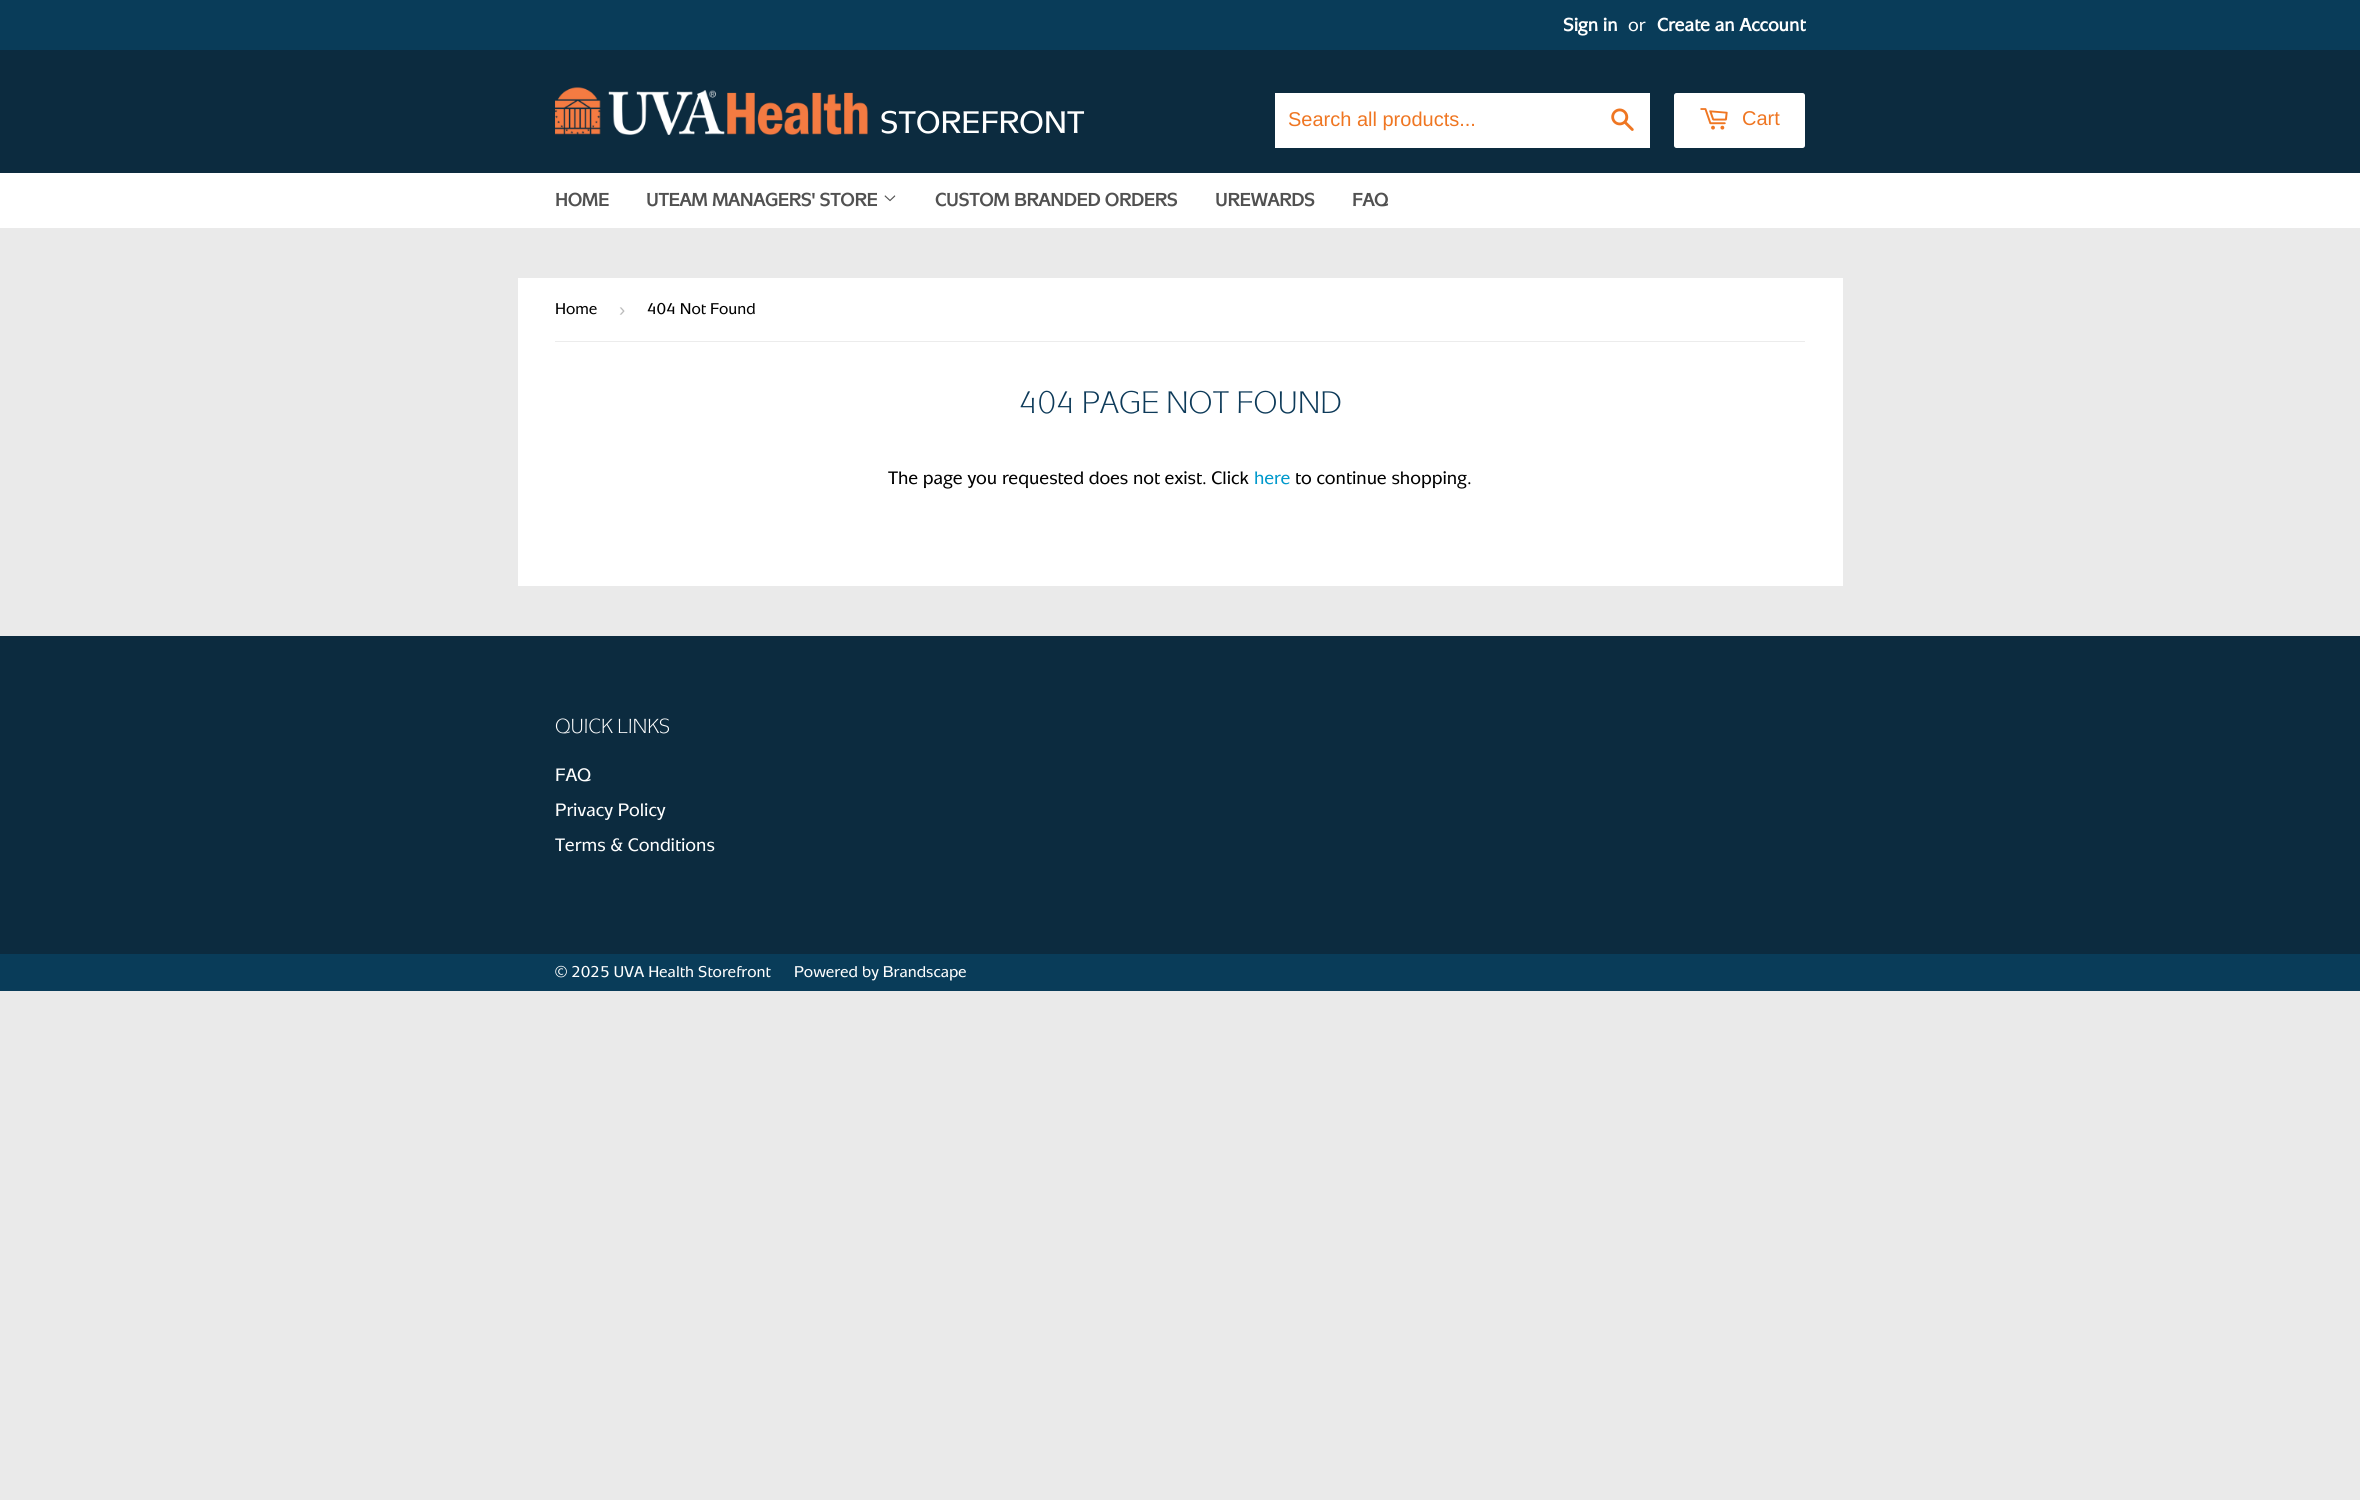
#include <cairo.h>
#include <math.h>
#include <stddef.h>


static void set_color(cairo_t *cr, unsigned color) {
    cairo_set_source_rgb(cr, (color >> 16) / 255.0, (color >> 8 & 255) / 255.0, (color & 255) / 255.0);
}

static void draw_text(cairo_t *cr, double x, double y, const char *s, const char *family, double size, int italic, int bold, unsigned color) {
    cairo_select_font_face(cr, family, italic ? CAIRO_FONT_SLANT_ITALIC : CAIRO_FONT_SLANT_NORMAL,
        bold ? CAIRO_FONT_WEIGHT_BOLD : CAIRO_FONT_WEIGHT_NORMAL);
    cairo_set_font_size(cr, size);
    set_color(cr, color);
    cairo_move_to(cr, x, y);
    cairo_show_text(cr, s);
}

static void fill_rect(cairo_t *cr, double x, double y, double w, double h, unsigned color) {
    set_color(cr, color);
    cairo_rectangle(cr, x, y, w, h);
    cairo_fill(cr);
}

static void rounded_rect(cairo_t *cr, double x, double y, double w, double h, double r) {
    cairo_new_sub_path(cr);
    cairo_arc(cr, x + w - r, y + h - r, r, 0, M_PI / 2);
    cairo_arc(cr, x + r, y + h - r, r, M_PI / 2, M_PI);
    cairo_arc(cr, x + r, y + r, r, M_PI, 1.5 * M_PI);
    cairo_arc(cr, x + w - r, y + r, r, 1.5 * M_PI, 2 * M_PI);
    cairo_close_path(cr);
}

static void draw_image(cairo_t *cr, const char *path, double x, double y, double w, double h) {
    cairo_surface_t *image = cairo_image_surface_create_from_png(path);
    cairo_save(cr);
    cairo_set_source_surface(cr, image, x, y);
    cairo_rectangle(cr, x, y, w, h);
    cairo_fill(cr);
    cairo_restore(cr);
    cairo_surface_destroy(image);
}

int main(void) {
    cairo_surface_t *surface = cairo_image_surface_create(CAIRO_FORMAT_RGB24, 2360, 1500);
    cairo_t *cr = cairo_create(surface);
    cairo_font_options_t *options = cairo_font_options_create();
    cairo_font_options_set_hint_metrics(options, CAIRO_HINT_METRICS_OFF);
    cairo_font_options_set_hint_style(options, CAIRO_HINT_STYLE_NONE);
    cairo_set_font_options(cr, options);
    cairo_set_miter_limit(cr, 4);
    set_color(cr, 0xEAEAEA);
    cairo_paint(cr);
    fill_rect(cr, 0, 0, 2360, 50, 0x093C59);
    draw_text(cr, 1563, 31, "Sign in", "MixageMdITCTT", 18.75, 0, 1, 0xFFFFFF);
    draw_text(cr, 1628, 31, "or", "MixageMdITCTT", 18.75, 0, 0, 0xFFFFFF);
    draw_text(cr, 1657, 31, "Create an Account", "MixageMdITCTT", 18.75, 0, 1, 0xFFFFFF);
    fill_rect(cr, 0, 50, 2360, 123, 0x0C2B3F);
    draw_image(cr, "assets/img1.png", 555, 87, 313, 48);
    draw_text(cr, 880, 133, "STOREFRONT", "MixageMdITCTT", 32.5, 0, 0, 0xFFFFFF);
    fill_rect(cr, 1275, 93, 375, 55, 0xFFFFFF);
    draw_text(cr, 1288, 126, "Search all products...", "Liberation Sans", 20, 0, 0, 0xEF7622);
    draw_image(cr, "assets/img2.png", 1611, 108, 23, 23);
    set_color(cr, 0xFFFFFF);
    rounded_rect(cr, 1674, 93, 131, 55, 2.5);
    cairo_fill(cr);
    draw_image(cr, "assets/img3.png", 1700, 108, 28, 22);
    draw_text(cr, 1742, 125, "Cart", "Liberation Sans", 20, 0, 0, 0xEF7622);
    fill_rect(cr, 0, 173, 2360, 55, 0xFFFFFF);
    draw_text(cr, 555, 206, "HOME", "MixageMdITCTT", 18.75, 0, 1, 0x515151);
    draw_text(cr, 646, 206, "UTEAM MANAGERS' STORE", "MixageMdITCTT", 18.75, 0, 1, 0x515151);
    draw_image(cr, "assets/img4.png", 884, 195, 12, 7);
    draw_text(cr, 935, 206, "CUSTOM BRANDED ORDERS", "MixageMdITCTT", 18.75, 0, 1, 0x515151);
    draw_text(cr, 1215, 206, "UREWARDS", "MixageMdITCTT", 18.75, 0, 1, 0x515151);
    draw_text(cr, 1352, 206, "FAQ", "MixageMdITCTT", 18.75, 0, 1, 0x515151);
    fill_rect(cr, 518, 278, 1325, 308, 0xFFFFFF);
    fill_rect(cr, 555, 341, 1250, 1, 0xECECEC);
    draw_text(cr, 555, 314, "Home", "MixageMdITCTT", 16.25, 0, 0, 0x000000);
    draw_text(cr, 619, 316, "›", "Liberation Sans", 18.75, 0, 0, 0xBBBBBB);
    draw_text(cr, 647, 314, "404 Not Found", "MixageMdITCTT", 16.25, 0, 0, 0x000000);
    draw_text(cr, 1019, 413, "404 PAGE NOT FOUND", "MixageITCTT", 32.5, 0, 0, 0x0D3A59);
    draw_text(cr, 888, 484, "The page you requested does not exist. Click", "MixageMdITCTT", 18.75, 0, 0, 0x000000);
    draw_text(cr, 1254, 484, "here", "MixageMdITCTT", 18.75, 0, 0, 0x0099CC);
    draw_text(cr, 1295, 484, "to continue shopping.", "MixageMdITCTT", 18.75, 0, 0, 0x000000);
    fill_rect(cr, 0, 636, 2360, 318, 0x0C2B3F);
    draw_text(cr, 555, 733, "QUICK LINKS", "MixageITCTT", 21.25, 0, 0, 0xFFFFFF);
    draw_text(cr, 555, 781, "FAQ", "MixageMdITCTT", 18.75, 0, 0, 0xFFFFFF);
    draw_text(cr, 555, 816, "Privacy Policy", "MixageMdITCTT", 18.75, 0, 0, 0xFFFFFF);
    draw_text(cr, 555, 851, "Terms & Conditions", "MixageMdITCTT", 18.75, 0, 0, 0xFFFFFF);
    fill_rect(cr, 0, 954, 2360, 37, 0x093C59);
    draw_text(cr, 555, 977, "© 2025 UVA Health Storefront", "MixageMdITCTT", 16.25, 0, 0, 0xFFFFFF);
    draw_text(cr, 794, 977, "Powered by Brandscape", "MixageMdITCTT", 16.25, 0, 0, 0xFFFFFF);
    cairo_surface_write_to_png(surface, "output.png");
    cairo_font_options_destroy(options);
    cairo_destroy(cr);
    cairo_surface_destroy(surface);
    return 0;
}
